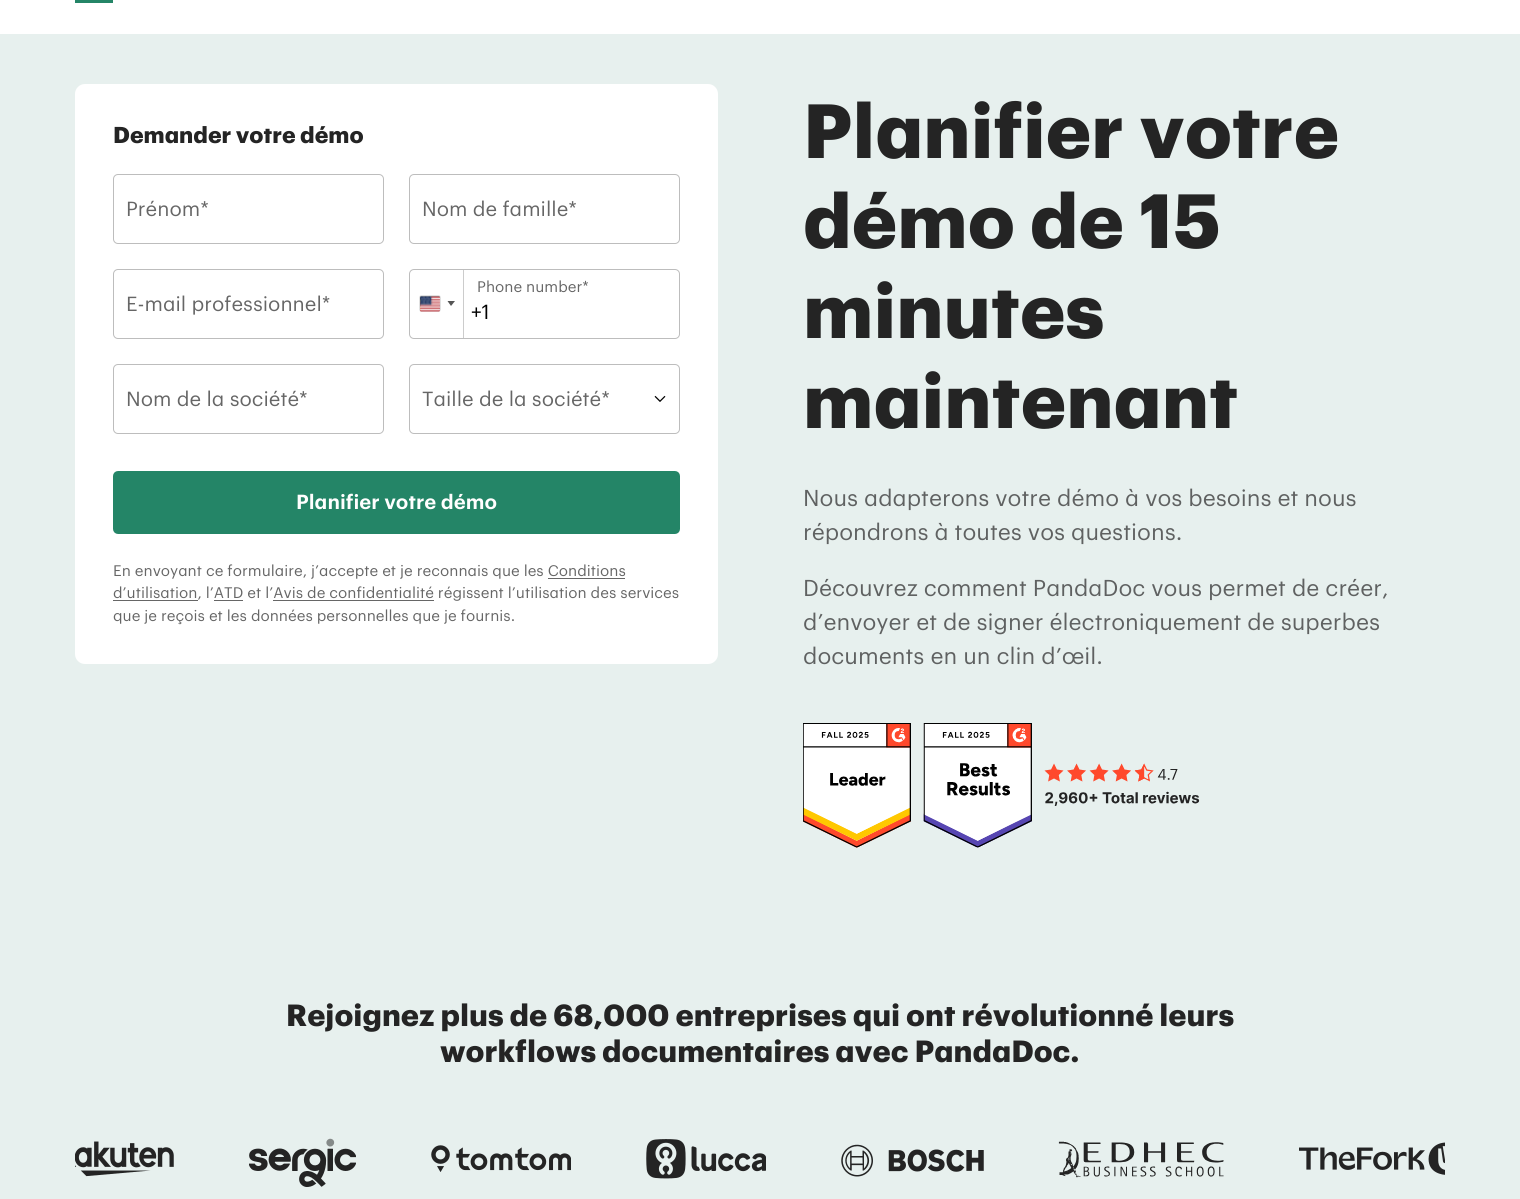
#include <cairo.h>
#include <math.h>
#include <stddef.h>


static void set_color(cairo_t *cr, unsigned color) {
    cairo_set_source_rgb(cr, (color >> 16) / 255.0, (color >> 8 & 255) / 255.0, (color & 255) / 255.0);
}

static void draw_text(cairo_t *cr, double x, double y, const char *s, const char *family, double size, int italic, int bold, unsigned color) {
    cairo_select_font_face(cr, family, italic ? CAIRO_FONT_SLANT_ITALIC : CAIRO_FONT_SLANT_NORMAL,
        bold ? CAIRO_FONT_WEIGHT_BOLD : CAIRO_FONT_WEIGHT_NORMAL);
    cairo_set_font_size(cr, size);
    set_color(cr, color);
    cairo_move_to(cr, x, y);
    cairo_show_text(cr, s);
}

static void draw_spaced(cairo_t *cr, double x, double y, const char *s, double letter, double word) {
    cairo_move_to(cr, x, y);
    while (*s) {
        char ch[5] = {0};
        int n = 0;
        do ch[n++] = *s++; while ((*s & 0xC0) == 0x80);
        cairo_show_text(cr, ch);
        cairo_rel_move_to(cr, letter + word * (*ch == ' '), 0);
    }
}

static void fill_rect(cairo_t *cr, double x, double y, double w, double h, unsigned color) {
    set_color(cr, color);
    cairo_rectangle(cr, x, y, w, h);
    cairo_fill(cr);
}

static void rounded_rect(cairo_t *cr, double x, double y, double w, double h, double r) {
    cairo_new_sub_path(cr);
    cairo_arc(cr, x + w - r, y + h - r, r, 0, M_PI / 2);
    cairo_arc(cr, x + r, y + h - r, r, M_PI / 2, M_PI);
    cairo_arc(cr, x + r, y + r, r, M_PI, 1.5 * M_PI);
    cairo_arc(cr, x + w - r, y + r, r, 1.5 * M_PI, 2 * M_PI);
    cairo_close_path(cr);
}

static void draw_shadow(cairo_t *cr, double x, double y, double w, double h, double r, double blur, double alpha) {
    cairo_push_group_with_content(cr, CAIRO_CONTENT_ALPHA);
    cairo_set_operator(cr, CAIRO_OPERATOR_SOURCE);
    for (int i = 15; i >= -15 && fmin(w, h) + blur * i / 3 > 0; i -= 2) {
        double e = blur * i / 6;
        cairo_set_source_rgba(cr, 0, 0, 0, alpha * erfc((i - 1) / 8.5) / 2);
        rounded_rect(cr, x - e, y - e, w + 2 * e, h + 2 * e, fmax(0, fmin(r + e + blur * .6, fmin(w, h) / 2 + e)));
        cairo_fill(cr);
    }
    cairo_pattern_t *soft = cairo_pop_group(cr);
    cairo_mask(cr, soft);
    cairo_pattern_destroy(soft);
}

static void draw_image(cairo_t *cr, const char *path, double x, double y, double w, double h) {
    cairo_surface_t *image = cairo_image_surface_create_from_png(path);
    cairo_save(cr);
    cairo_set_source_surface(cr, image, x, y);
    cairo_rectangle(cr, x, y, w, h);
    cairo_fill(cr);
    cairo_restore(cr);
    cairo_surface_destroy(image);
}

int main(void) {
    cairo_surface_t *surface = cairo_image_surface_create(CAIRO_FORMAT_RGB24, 1520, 1199);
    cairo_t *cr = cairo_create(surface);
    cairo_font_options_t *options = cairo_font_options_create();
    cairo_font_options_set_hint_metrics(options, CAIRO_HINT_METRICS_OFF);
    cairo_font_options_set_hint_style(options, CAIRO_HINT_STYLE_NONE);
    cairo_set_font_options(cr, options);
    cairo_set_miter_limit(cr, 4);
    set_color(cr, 0xE7F0EE);
    cairo_paint(cr);
    fill_rect(cr, 0, 0, 1520, 34, 0xFFFFFF);
    fill_rect(cr, 75, 0, 38, 3, 0x248567);
    set_color(cr, 0xFFFFFF);
    rounded_rect(cr, 75, 84, 643, 580, 10);
    cairo_fill(cr);
    draw_text(cr, 113, 143, "Demander votre démo", "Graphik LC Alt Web", 22.5, 0, 1, 0x242424);
    rounded_rect(cr, 113.5, 174.5, 270, 69, 4.5);
    set_color(cr, 0xBDBDBD);
    cairo_set_line_width(cr, 1);
    cairo_stroke(cr);
    draw_text(cr, 126, 216, "Prénom*", "Graphik LC Alt Web", 20, 0, 0, 0x666666);
    rounded_rect(cr, 409.5, 174.5, 270, 69, 4.5);
    set_color(cr, 0xBDBDBD);
    cairo_stroke(cr);
    draw_text(cr, 422, 216, "Nom de famille*", "Graphik LC Alt Web", 20, 0, 0, 0x666666);
    rounded_rect(cr, 113.5, 269.5, 270, 69, 4.5);
    set_color(cr, 0xBDBDBD);
    cairo_stroke(cr);
    draw_text(cr, 126, 311, "E-mail professionnel*", "Graphik LC Alt Web", 20, 0, 0, 0x666666);
    rounded_rect(cr, 409.5, 269.5, 270, 69, 4.5);
    set_color(cr, 0xBDBDBD);
    cairo_stroke(cr);
    draw_text(cr, 477, 292, "Phone number*", "Graphik LC Alt Web", 15, 0, 0, 0x666666);
    fill_rect(cr, 463, 270, 1, 68, 0xCCCCCC);
    set_color(cr, 0x888888);
    draw_shadow(cr, 420, 296, 20, 15, 1, 0.5, 1);
    draw_image(cr, "assets/img1.png", 420, 296, 20, 16);
    set_color(cr, 0x555555);
    cairo_new_path(cr);
    cairo_move_to(cr, 447.5, 301);
    cairo_line_to(cr, 455, 301);
    cairo_line_to(cr, 451, 306);
    cairo_close_path(cr);
    cairo_fill(cr);
    draw_text(cr, 471, 319, "+1", "Graphik LC Alt Web", 20, 0, 0, 0x000000);
    rounded_rect(cr, 113.5, 364.5, 270, 69, 4.5);
    set_color(cr, 0xBDBDBD);
    cairo_stroke(cr);
    draw_text(cr, 126, 406, "Nom de la société*", "Graphik LC Alt Web", 20, 0, 0, 0x666666);
    draw_image(cr, "assets/img2.png", 654, 395, 12, 7);
    rounded_rect(cr, 409.5, 364.5, 270, 69, 4.5);
    set_color(cr, 0xBDBDBD);
    cairo_stroke(cr);
    draw_text(cr, 422, 406, "Taille de la société*", "Graphik LC Alt Web", 20, 0, 0, 0x666666);
    set_color(cr, 0x248567);
    rounded_rect(cr, 114.5, 472.5, 564, 60, 3.5);
    cairo_fill_preserve(cr);
    cairo_set_line_width(cr, 3);
    cairo_stroke(cr);
    draw_text(cr, 296, 509, "Planifier votre démo", "Graphik LC Alt Web SemiBold", 20, 0, 0, 0xFFFFFF);
    draw_text(cr, 113, 576, "En envoyant ce formulaire, j’accepte et je reconnais que les Conditions", "Graphik LC Alt Web", 15, 0, 0, 0x666666);
    fill_rect(cr, 113, 600, 85, 1, 0x666666);
    draw_text(cr, 113, 598, "d’utilisation, l’ATD et l’Avis de confidentialité régissent l’utilisation des services", "Graphik LC Alt Web", 15, 0, 0, 0x666666);
    fill_rect(cr, 548, 578, 77, 1, 0x666666);
    fill_rect(cr, 214, 600, 29, 1, 0x666666);
    fill_rect(cr, 273, 600, 161, 1, 0x666666);
    draw_text(cr, 113, 621, "que je reçois et les données personnelles que je fournis.", "Graphik LC Alt Web", 15, 0, 0, 0x666666);
    cairo_select_font_face(cr, "Graphik LC Alt Web", CAIRO_FONT_SLANT_NORMAL, CAIRO_FONT_WEIGHT_BOLD);
    cairo_set_font_size(cr, 75);
    set_color(cr, 0x242424);
    draw_spaced(cr, 803, 158, "Planifier votre", 0, 1);
    draw_text(cr, 803, 248, "démo de 15", "Graphik LC Alt Web", 75, 0, 1, 0x242424);
    draw_text(cr, 803, 338, "minutes", "Graphik LC Alt Web", 75, 0, 1, 0x242424);
    draw_text(cr, 803, 428, "maintenant", "Graphik LC Alt Web", 75, 0, 1, 0x242424);
    draw_text(cr, 803, 506, "Nous adapterons votre démo à vos besoins et nous", "Graphik LC Alt Web", 22.5, 0, 0, 0x5F6161);
    draw_text(cr, 803, 540, "répondrons à toutes vos questions.", "Graphik LC Alt Web", 22.5, 0, 0, 0x5F6161);
    draw_text(cr, 803, 596, "Découvrez comment PandaDoc vous permet de créer,", "Graphik LC Alt Web", 22.5, 0, 0, 0x5F6161);
    draw_text(cr, 803, 630, "d’envoyer et de signer électroniquement de superbes", "Graphik LC Alt Web", 22.5, 0, 0, 0x5F6161);
    draw_text(cr, 803, 664, "documents en un clin d’œil.", "Graphik LC Alt Web", 22.5, 0, 0, 0x5F6161);
    draw_image(cr, "assets/img3.png", 803, 723, 397, 125);
    draw_text(cr, 286, 1026, "Rejoignez plus de 68,000 entreprises qui ont révolutionné leurs", "Graphik LC Alt Web", 30, 0, 1, 0x242424);
    draw_text(cr, 440, 1062, "workflows documentaires avec PandaDoc.", "Graphik LC Alt Web", 30, 0, 1, 0x242424);
    draw_image(cr, "assets/img4.png", 75, 1141, 99, 36);
    draw_image(cr, "assets/img5.png", 249, 1138, 107, 49);
    draw_image(cr, "assets/img6.png", 431, 1145, 140, 27);
    draw_image(cr, "assets/img7.png", 646, 1139, 120, 40);
    draw_image(cr, "assets/img8.png", 841, 1144, 143, 33);
    draw_image(cr, "assets/img9.png", 1058, 1141, 166, 37);
    draw_image(cr, "assets/img10.png", 1299, 1142, 146, 33);
    cairo_surface_write_to_png(surface, "output.png");
    cairo_font_options_destroy(options);
    cairo_destroy(cr);
    cairo_surface_destroy(surface);
    return 0;
}
